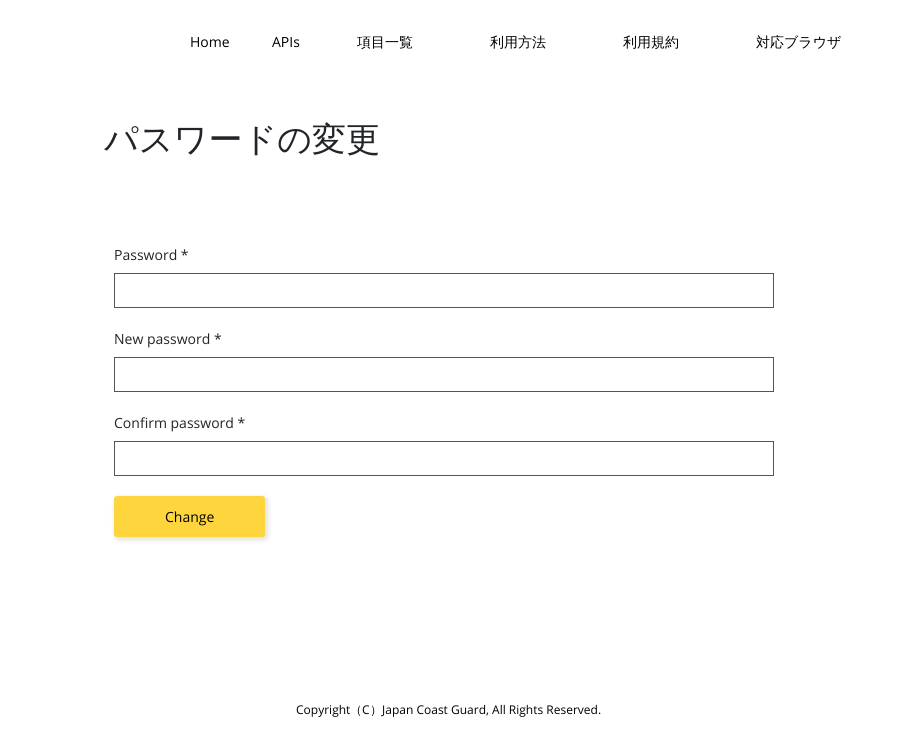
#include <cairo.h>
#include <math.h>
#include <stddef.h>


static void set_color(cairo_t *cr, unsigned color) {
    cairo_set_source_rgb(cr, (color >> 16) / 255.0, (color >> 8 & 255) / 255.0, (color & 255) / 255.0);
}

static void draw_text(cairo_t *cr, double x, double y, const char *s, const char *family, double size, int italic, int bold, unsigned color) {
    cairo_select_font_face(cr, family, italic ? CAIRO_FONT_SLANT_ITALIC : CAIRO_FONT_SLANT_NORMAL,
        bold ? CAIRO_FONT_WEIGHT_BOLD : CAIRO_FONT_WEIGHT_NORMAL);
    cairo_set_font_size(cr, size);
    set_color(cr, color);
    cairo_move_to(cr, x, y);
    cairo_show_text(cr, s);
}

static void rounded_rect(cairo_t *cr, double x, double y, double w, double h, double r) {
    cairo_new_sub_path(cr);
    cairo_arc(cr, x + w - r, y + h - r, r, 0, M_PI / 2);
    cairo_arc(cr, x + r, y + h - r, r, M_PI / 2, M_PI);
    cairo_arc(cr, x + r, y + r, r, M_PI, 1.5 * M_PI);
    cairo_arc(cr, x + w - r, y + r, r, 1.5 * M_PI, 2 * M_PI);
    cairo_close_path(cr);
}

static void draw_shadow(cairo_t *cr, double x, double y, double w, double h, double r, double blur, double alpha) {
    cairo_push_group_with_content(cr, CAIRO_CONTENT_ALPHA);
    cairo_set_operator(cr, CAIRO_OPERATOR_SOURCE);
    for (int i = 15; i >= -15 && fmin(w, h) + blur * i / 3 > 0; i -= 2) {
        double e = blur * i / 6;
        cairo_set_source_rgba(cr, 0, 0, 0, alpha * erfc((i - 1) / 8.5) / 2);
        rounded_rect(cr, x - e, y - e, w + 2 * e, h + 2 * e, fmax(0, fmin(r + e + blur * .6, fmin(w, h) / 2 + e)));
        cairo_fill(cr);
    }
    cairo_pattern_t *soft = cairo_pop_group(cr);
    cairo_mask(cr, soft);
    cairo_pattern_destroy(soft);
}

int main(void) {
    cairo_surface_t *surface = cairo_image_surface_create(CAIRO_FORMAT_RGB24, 897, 749);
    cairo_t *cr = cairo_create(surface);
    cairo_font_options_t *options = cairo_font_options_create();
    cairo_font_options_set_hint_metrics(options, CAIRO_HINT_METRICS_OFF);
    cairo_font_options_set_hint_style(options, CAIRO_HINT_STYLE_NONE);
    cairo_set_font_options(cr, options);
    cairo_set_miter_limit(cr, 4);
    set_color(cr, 0xFFFFFF);
    cairo_paint(cr);
    draw_text(cr, 190, 47, "Home", "Open Sans", 14, 0, 0, 0x000000);
    draw_text(cr, 272, 47, "APIs", "Open Sans", 14, 0, 0, 0x000000);
    draw_text(cr, 357, 47, "項目一覧", "WenQuanYi Zen Hei Medium", 14, 0, 0, 0x000000);
    draw_text(cr, 490, 47, "利用方法", "WenQuanYi Zen Hei Medium", 14, 0, 0, 0x000000);
    draw_text(cr, 623, 47, "利用規約", "WenQuanYi Zen Hei Medium", 14, 0, 0, 0x000000);
    draw_text(cr, 756, 47, "対応ブラウザ", "WenQuanYi Zen Hei Medium", 14, 0, 0, 0x000000);
    draw_text(cr, 104, 151, "パスワードの変更", "WenQuanYi Zen Hei Medium", 34, 0, 0, 0x212529);
    draw_text(cr, 114, 260, "Password *", "Open Sans", 14, 0, 0, 0x212529);
    cairo_rectangle(cr, 114.5, 273.5, 659, 34);
    set_color(cr, 0x555555);
    cairo_set_line_width(cr, 1);
    cairo_stroke(cr);
    draw_text(cr, 114, 344, "New password *", "Open Sans", 14, 0, 0, 0x212529);
    cairo_rectangle(cr, 114.5, 357.5, 659, 34);
    set_color(cr, 0x555555);
    cairo_stroke(cr);
    draw_text(cr, 114, 428, "Confirm password *", "Open Sans", 14, 0, 0, 0x212529);
    cairo_rectangle(cr, 114.5, 441.5, 659, 34);
    set_color(cr, 0x555555);
    cairo_stroke(cr);
    set_color(cr, 0x000000);
    draw_shadow(cr, 115, 497, 153, 43, 4, 2.5, 0.12);
    set_color(cr, 0xFED53C);
    rounded_rect(cr, 114, 496, 151, 41, 3);
    cairo_fill(cr);
    draw_text(cr, 165, 522, "Change", "Open Sans", 14, 0, 0, 0x000000);
    draw_text(cr, 296, 714, "Copyright", "Open Sans", 12, 0, 0, 0x000000);
    draw_text(cr, 350, 714, "（", "WenQuanYi Zen Hei Medium", 12, 0, 0, 0x000000);
    draw_text(cr, 362, 714, "C", "Open Sans", 12, 0, 0, 0x000000);
    draw_text(cr, 370, 714, "）", "WenQuanYi Zen Hei Medium", 12, 0, 0, 0x000000);
    draw_text(cr, 382, 714, "Japan Coast Guard, All Rights Reserved.", "Open Sans", 12, 0, 0, 0x000000);
    cairo_surface_write_to_png(surface, "output.png");
    cairo_font_options_destroy(options);
    cairo_destroy(cr);
    cairo_surface_destroy(surface);
    return 0;
}
